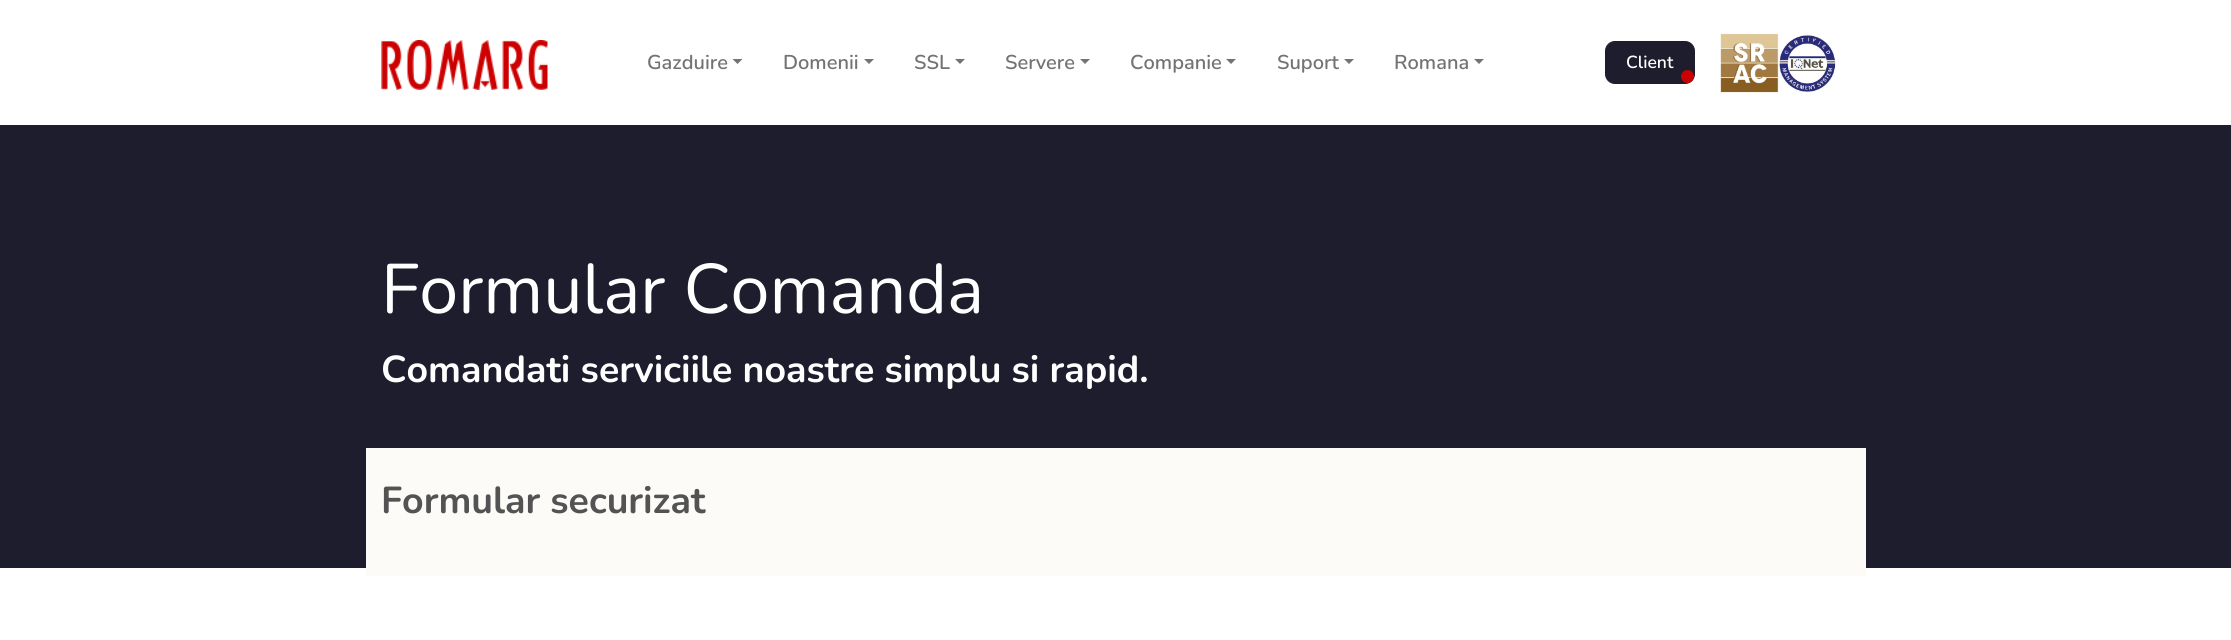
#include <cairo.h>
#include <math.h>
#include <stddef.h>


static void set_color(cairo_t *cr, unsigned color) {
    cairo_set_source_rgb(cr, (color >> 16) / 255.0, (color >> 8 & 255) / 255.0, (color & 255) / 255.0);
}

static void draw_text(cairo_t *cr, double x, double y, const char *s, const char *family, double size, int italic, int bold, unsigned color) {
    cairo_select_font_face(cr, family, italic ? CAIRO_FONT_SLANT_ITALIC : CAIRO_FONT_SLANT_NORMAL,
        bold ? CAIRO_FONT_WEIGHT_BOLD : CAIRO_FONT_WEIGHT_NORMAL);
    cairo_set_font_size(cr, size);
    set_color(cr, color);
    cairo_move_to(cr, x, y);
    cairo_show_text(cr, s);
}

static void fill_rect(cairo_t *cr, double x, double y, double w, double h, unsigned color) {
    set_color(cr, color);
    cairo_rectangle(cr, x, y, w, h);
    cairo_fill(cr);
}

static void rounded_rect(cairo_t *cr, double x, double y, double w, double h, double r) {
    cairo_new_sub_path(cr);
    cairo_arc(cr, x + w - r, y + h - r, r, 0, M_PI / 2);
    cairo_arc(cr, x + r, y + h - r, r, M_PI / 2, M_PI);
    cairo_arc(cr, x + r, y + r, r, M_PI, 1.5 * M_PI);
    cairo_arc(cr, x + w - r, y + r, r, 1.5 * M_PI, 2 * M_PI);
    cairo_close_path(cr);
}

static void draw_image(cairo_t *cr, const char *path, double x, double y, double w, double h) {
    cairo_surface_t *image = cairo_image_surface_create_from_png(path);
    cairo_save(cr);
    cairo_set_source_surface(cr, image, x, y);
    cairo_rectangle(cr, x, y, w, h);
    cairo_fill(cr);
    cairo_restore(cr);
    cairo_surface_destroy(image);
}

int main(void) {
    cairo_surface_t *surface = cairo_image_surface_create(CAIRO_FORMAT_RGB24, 2231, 640);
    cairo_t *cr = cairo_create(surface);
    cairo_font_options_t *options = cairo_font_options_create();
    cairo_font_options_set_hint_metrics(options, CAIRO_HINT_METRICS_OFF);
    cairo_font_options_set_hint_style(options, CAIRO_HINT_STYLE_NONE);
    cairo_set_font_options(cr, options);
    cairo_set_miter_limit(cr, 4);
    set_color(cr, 0xFFFFFF);
    cairo_paint(cr);
    draw_image(cr, "assets/img1.png", 381, 40, 167, 50);
    draw_text(cr, 647, 69, "Gazduire", "Nunito SemiBold", 20, 0, 0, 0x737373);
    cairo_new_path(cr);
    cairo_move_to(cr, 732.5, 59);
    cairo_line_to(cr, 742.5, 59);
    cairo_line_to(cr, 737.5, 64);
    cairo_close_path(cr);
    cairo_fill(cr);
    draw_text(cr, 783, 69, "Domenii", "Nunito SemiBold", 20, 0, 0, 0x737373);
    cairo_new_path(cr);
    cairo_move_to(cr, 864, 59);
    cairo_line_to(cr, 874, 59);
    cairo_line_to(cr, 869, 64);
    cairo_close_path(cr);
    cairo_fill(cr);
    draw_text(cr, 914, 69, "SSL", "Nunito SemiBold", 20, 0, 0, 0x737373);
    cairo_new_path(cr);
    cairo_move_to(cr, 955, 59);
    cairo_line_to(cr, 965, 59);
    cairo_line_to(cr, 960, 64);
    cairo_close_path(cr);
    cairo_fill(cr);
    draw_text(cr, 1005, 69, "Servere", "Nunito SemiBold", 20, 0, 0, 0x737373);
    cairo_new_path(cr);
    cairo_move_to(cr, 1080, 59);
    cairo_line_to(cr, 1090, 59);
    cairo_line_to(cr, 1085, 64);
    cairo_close_path(cr);
    cairo_fill(cr);
    draw_text(cr, 1130, 69, "Companie", "Nunito SemiBold", 20, 0, 0, 0x737373);
    cairo_new_path(cr);
    cairo_move_to(cr, 1226, 59);
    cairo_line_to(cr, 1236, 59);
    cairo_line_to(cr, 1231, 64);
    cairo_close_path(cr);
    cairo_fill(cr);
    draw_text(cr, 1277, 69, "Suport", "Nunito SemiBold", 20, 0, 0, 0x737373);
    cairo_new_path(cr);
    cairo_move_to(cr, 1344, 59);
    cairo_line_to(cr, 1354, 59);
    cairo_line_to(cr, 1349, 64);
    cairo_close_path(cr);
    cairo_fill(cr);
    draw_text(cr, 1394, 69, "Romana", "Nunito SemiBold", 20, 0, 0, 0x737373);
    cairo_new_path(cr);
    cairo_move_to(cr, 1474, 59);
    cairo_line_to(cr, 1484, 59);
    cairo_line_to(cr, 1479, 64);
    cairo_close_path(cr);
    cairo_fill(cr);
    set_color(cr, 0x1E1D2D);
    rounded_rect(cr, 1605.5, 41.5, 89, 42, 9.5);
    cairo_fill_preserve(cr);
    cairo_set_line_width(cr, 1);
    cairo_stroke(cr);
    draw_text(cr, 1626, 68, "Client", "Nunito SemiBold", 17.5, 0, 0, 0xFFFFFF);
    set_color(cr, 0xCC0000);
    cairo_new_path(cr);
    cairo_arc(cr, 1687.5, 76.5, 6.5, 0, 2 * M_PI);
    cairo_fill(cr);
    draw_image(cr, "assets/img2.png", 1720, 33, 116, 60);
    fill_rect(cr, 0, 125, 2231, 443, 0x1E1D2D);
    draw_text(cr, 381, 313, "Formular Comanda", "Nunito", 70, 0, 0, 0xFFFFFF);
    draw_text(cr, 381, 382, "Comandati serviciile noastre simplu si rapid.", "Nunito", 37.5, 0, 1, 0xFFFFFF);
    fill_rect(cr, 366, 448, 1500, 128, 0xFCFBF7);
    draw_text(cr, 381, 513, "Formular securizat", "Nunito", 37.5, 0, 1, 0x535353);
    cairo_surface_write_to_png(surface, "output.png");
    cairo_font_options_destroy(options);
    cairo_destroy(cr);
    cairo_surface_destroy(surface);
    return 0;
}
